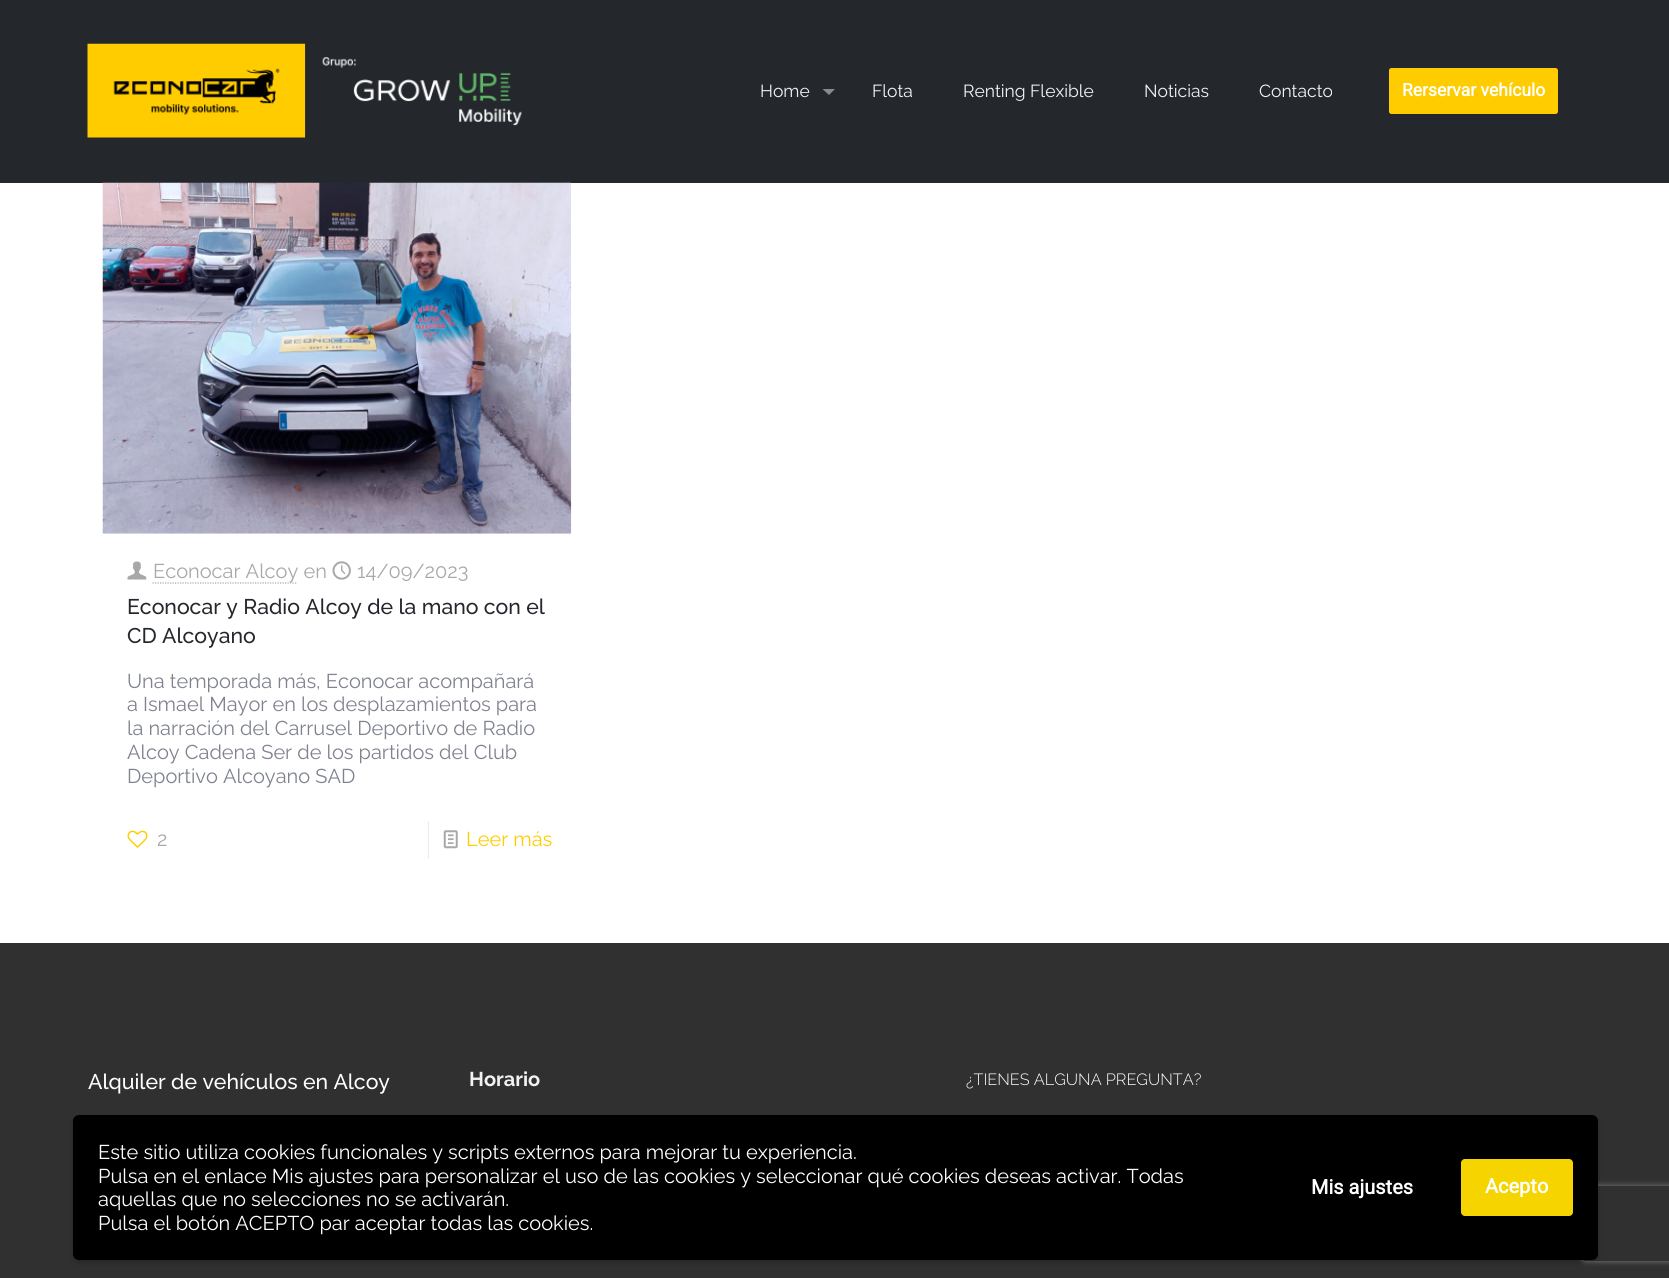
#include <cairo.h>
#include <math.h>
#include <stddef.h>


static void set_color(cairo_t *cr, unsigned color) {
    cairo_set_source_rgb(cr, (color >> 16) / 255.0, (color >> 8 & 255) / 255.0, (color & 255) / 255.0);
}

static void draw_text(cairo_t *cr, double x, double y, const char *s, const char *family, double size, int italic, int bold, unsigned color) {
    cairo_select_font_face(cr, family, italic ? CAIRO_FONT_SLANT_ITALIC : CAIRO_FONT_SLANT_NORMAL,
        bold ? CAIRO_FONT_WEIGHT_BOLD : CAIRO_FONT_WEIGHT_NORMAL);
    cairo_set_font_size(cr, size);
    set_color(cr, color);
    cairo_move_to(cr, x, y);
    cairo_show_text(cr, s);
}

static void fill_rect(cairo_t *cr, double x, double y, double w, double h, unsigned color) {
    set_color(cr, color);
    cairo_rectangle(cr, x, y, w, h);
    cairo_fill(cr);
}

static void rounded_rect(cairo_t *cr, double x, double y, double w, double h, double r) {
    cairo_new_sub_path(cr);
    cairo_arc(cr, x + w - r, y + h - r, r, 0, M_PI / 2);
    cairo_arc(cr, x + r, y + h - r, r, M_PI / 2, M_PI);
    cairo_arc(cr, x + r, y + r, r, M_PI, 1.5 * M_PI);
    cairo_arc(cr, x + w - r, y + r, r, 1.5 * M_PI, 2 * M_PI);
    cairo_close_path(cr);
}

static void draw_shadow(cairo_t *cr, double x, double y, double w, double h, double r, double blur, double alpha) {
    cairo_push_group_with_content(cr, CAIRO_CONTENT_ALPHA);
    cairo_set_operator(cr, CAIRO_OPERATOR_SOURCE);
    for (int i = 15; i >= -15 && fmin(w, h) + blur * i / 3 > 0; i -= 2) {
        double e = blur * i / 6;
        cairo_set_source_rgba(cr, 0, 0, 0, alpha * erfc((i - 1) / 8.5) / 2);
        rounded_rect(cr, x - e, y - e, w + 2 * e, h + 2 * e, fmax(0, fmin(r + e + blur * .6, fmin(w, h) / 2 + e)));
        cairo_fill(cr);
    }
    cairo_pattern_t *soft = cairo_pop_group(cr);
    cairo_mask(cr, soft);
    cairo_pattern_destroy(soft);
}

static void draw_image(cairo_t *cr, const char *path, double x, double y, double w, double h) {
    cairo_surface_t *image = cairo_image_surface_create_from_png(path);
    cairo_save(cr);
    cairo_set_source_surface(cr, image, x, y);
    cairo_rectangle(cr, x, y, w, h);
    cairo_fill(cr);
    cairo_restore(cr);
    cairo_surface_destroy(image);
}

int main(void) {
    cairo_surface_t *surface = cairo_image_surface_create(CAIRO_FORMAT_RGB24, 1669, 1278);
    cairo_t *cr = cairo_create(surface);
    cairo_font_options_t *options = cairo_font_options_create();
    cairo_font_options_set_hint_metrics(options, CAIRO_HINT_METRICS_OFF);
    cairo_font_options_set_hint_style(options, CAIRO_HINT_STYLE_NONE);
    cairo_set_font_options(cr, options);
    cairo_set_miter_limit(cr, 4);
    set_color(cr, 0xFFFFFF);
    cairo_paint(cr);
    fill_rect(cr, 0, 0, 1669, 183, 0x24272C);
    draw_image(cr, "assets/img1.png", 87, 43, 435, 95);
    draw_text(cr, 760, 97, "Home", "Raleway", 17.5, 0, 0, 0xF2F2F2);
    set_color(cr, 0x898A8C);
    cairo_new_path(cr);
    cairo_move_to(cr, 822.5, 89);
    cairo_line_to(cr, 835, 89);
    cairo_line_to(cr, 829, 95);
    cairo_close_path(cr);
    cairo_fill(cr);
    draw_text(cr, 872, 97, "Flota", "Raleway", 17.5, 0, 0, 0xF2F2F2);
    draw_text(cr, 963, 97, "Renting Flexible", "Raleway", 17.5, 0, 0, 0xF2F2F2);
    draw_text(cr, 1144, 97, "Noticias", "Raleway", 17.5, 0, 0, 0xF2F2F2);
    draw_text(cr, 1259, 97, "Contacto", "Raleway", 17.5, 0, 0, 0xF2F2F2);
    set_color(cr, 0xFFCC00);
    rounded_rect(cr, 1389, 68, 169, 46, 2.5);
    cairo_fill(cr);
    draw_text(cr, 1402, 96, "Rerservar vehículo", "Roboto", 17.5, 0, 1, 0xFFFFFF);
    draw_image(cr, "assets/img2.png", 102, 182, 470, 352);
    draw_image(cr, "assets/img3.png", 127, 561, 20, 19);
    cairo_new_path(cr);
    cairo_move_to(cr, 152.5, 583);
    cairo_line_to(cr, 297.5, 583);
    set_color(cr, 0xA8A8A8);
    cairo_set_line_width(cr, 1.2);
    cairo_set_dash(cr, (double[]){1.25, 1.25}, 2, 0);
    cairo_stroke(cr);
    draw_text(cr, 153, 578, "Econocar Alcoy en", "Raleway", 20, 0, 0, 0xA8A8A8);
    draw_image(cr, "assets/img4.png", 332, 561, 19, 19);
    draw_text(cr, 357, 578, "14/09/2023", "Raleway", 20, 0, 0, 0xA8A8A8);
    draw_text(cr, 127, 614, "Econocar y Radio Alcoy de la mano con el", "Raleway Medium", 21.25, 0, 0, 0x24272C);
    draw_text(cr, 127, 643, "CD Alcoyano", "Raleway Medium", 21.25, 0, 0, 0x24272C);
    draw_text(cr, 127, 688, "Una temporada más, Econocar acompañará", "Raleway", 20, 0, 0, 0x80838F);
    draw_text(cr, 127, 711, "a Ismael Mayor en los desplazamientos para", "Raleway", 20, 0, 0, 0x80838F);
    draw_text(cr, 127, 735, "la narración del Carrusel Deportivo de Radio", "Raleway", 20, 0, 0, 0x80838F);
    draw_text(cr, 127, 759, "Alcoy Cadena Ser de los partidos del Club", "Raleway", 20, 0, 0, 0x80838F);
    draw_text(cr, 127, 783, "Deportivo Alcoyano SAD", "Raleway", 20, 0, 0, 0x80838F);
    draw_image(cr, "assets/img5.png", 127, 830, 21, 18);
    draw_text(cr, 157, 846, "2", "Raleway", 20, 0, 0, 0xA8A8A8);
    fill_rect(cr, 428, 821, 1, 38, 0xEBEBEB);
    draw_image(cr, "assets/img6.png", 443, 830, 15, 19);
    draw_text(cr, 466, 846, "Leer más", "Raleway", 20, 0, 0, 0xFFCC00);
    fill_rect(cr, 0, 943, 1669, 335, 0x303030);
    draw_text(cr, 88, 1089, "Alquiler de vehículos en Alcoy", "Raleway Medium", 21.25, 0, 0, 0xFFFFFF);
    draw_text(cr, 469, 1086, "Horario", "Raleway", 20, 0, 1, 0xF2F2F2);
    draw_text(cr, 966, 1085, "¿TIENES ALGUNA PREGUNTA?", "Raleway Light", 16.25, 0, 0, 0xFFFFFF);
    set_color(cr, 0x000000);
    draw_shadow(cr, 73, 1118, 1525, 145, 6, 2.5, 0.2);
    cairo_save(cr);
    cairo_set_fill_rule(cr, CAIRO_FILL_RULE_EVEN_ODD);
    cairo_new_path(cr);
    cairo_move_to(cr, 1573, 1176);
    cairo_line_to(cr, 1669, 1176);
    cairo_line_to(cr, 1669, 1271);
    cairo_line_to(cr, 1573, 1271);
    cairo_close_path(cr);
    cairo_move_to(cr, 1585.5, 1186);
    cairo_line_to(cr, 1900.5, 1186);
    cairo_curve_to(cr, 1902, 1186, 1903, 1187, 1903, 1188.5);
    cairo_line_to(cr, 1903, 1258.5);
    cairo_curve_to(cr, 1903, 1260, 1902, 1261, 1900.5, 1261);
    cairo_line_to(cr, 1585.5, 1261);
    cairo_curve_to(cr, 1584, 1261, 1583, 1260, 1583, 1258.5);
    cairo_line_to(cr, 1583, 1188.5);
    cairo_curve_to(cr, 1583, 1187, 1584, 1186, 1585.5, 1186);
    cairo_close_path(cr);
    cairo_clip(cr);
    set_color(cr, 0x808080);
    draw_shadow(cr, 1583, 1186, 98, 75, 2.5, 3, 1);
    cairo_restore(cr);
    set_color(cr, 0x000000);
    rounded_rect(cr, 73, 1115, 1525, 145, 6);
    cairo_fill(cr);
    draw_text(cr, 98, 1159, "Este sitio utiliza cookies funcionales y scripts externos para mejorar tu experiencia.", "Raleway", 20, 0, 0, 0xFFFFFF);
    draw_text(cr, 98, 1183, "Pulsa en el enlace Mis ajustes para personalizar el uso de las cookies y seleccionar qué cookies deseas activar. Todas", "Raleway", 20, 0, 0, 0xFFFFFF);
    draw_text(cr, 98, 1206, "aquellas que no selecciones no se activarán.", "Raleway", 20, 0, 0, 0xFFFFFF);
    draw_text(cr, 98, 1230, "Pulsa el botón ACEPTO par aceptar todas las cookies.", "Raleway", 20, 0, 0, 0xFFFFFF);
    draw_text(cr, 1311, 1194, "Mis ajustes", "Roboto", 20, 0, 1, 0xFFFFFF);
    set_color(cr, 0xF5D400);
    rounded_rect(cr, 1461.5, 1159.5, 111, 56, 3.5);
    cairo_fill_preserve(cr);
    cairo_set_line_width(cr, 1);
    cairo_set_dash(cr, NULL, 0, 0);
    cairo_stroke(cr);
    draw_text(cr, 1485, 1193, "Acepto", "Roboto", 20, 0, 1, 0xFFFFFF);
    cairo_surface_write_to_png(surface, "output.png");
    cairo_font_options_destroy(options);
    cairo_destroy(cr);
    cairo_surface_destroy(surface);
    return 0;
}
